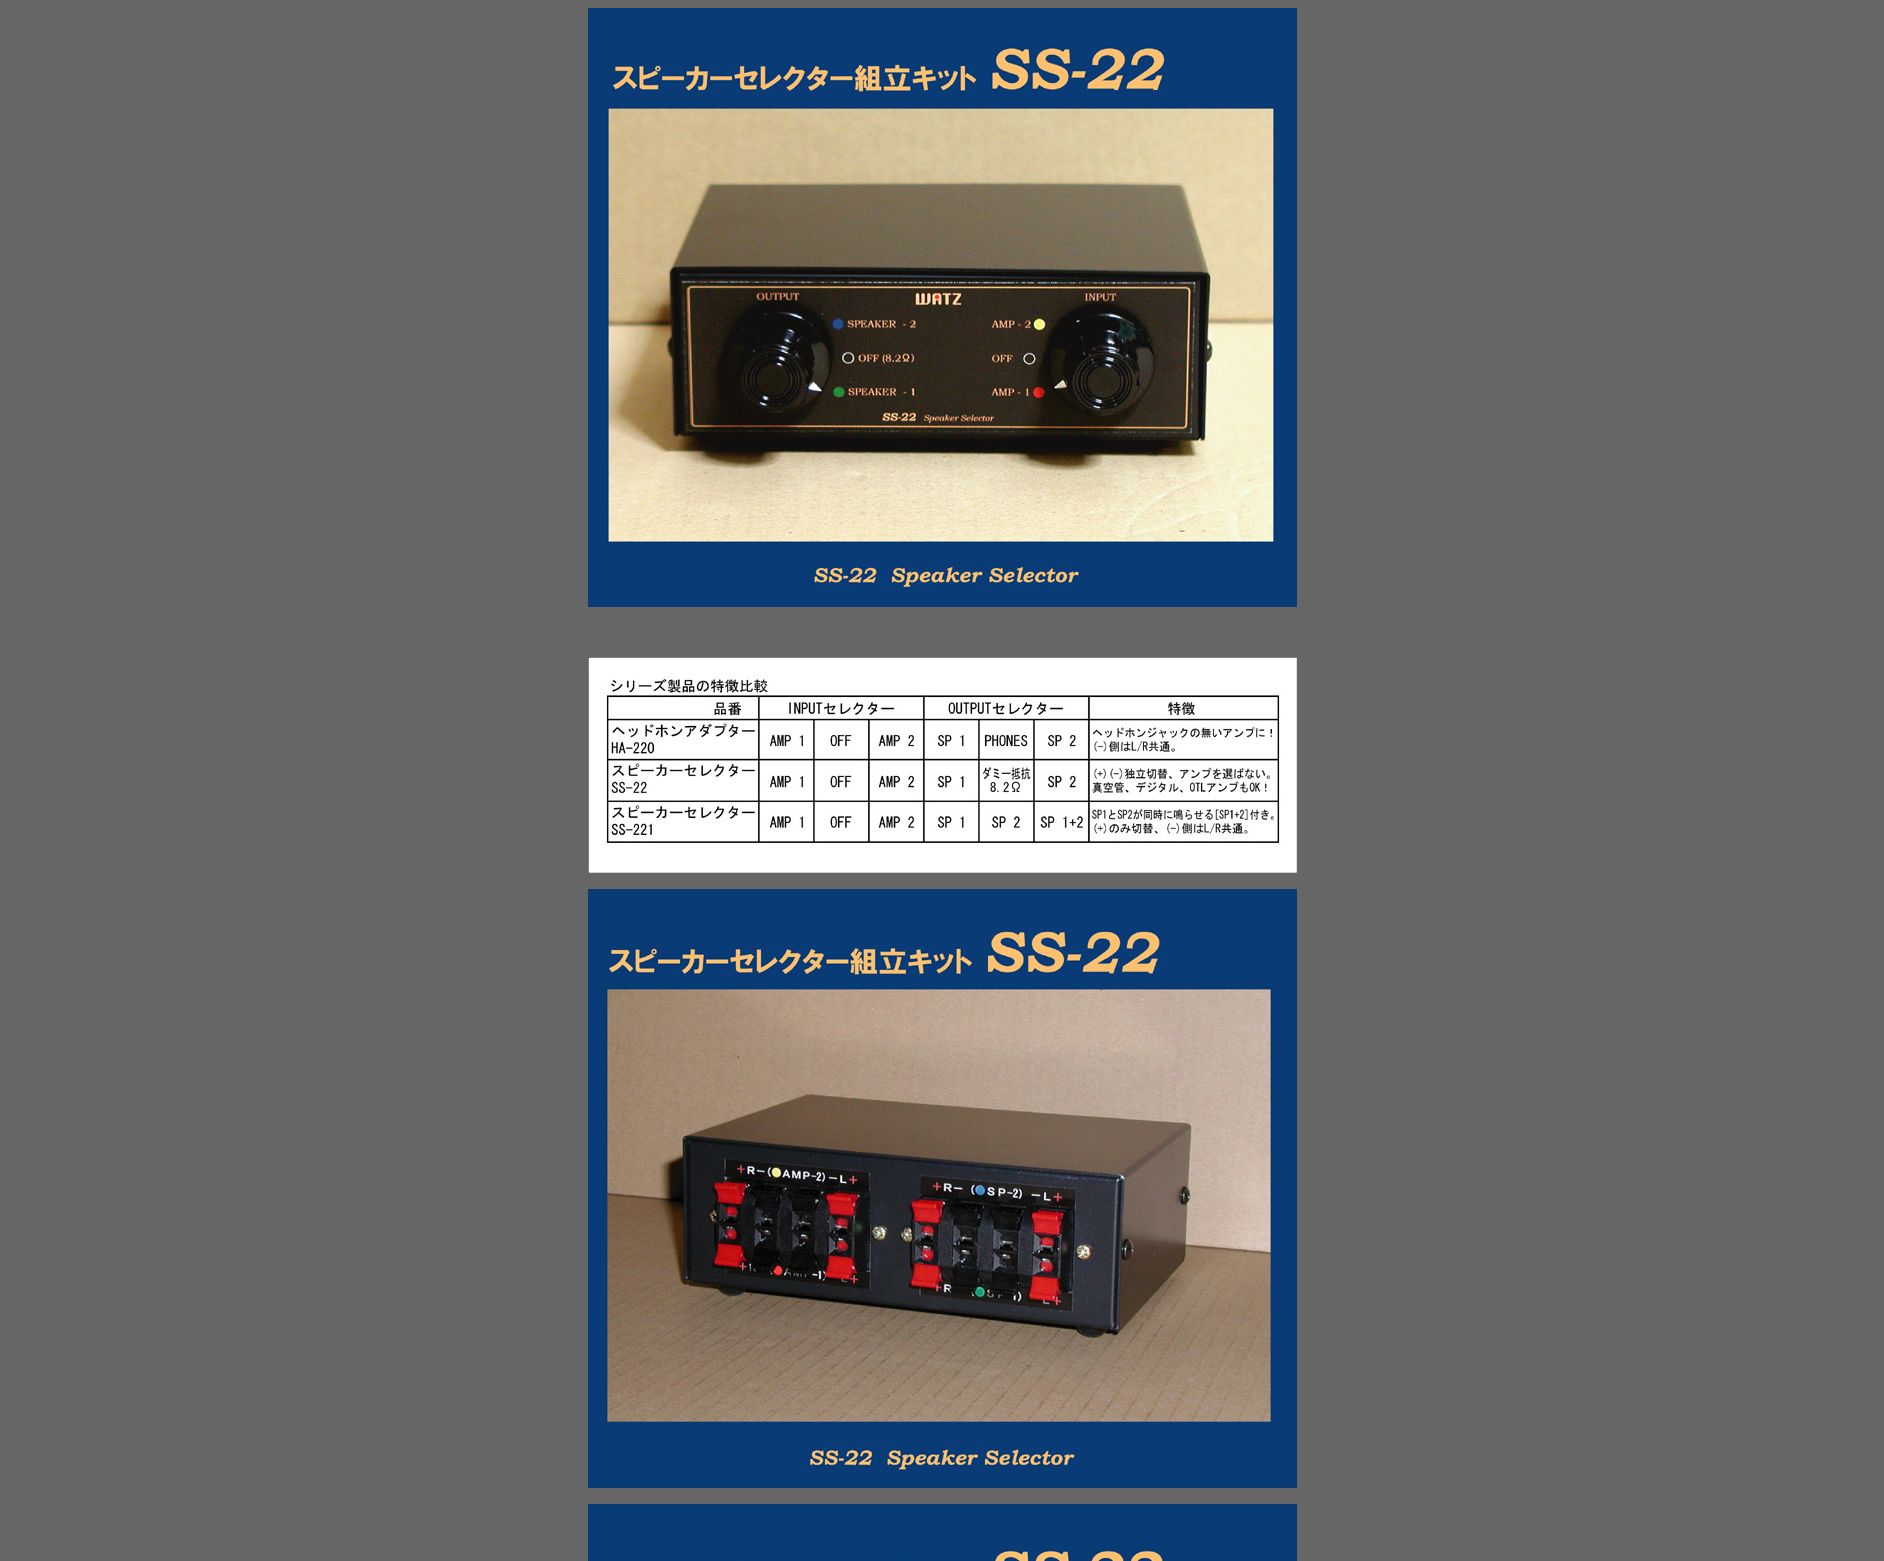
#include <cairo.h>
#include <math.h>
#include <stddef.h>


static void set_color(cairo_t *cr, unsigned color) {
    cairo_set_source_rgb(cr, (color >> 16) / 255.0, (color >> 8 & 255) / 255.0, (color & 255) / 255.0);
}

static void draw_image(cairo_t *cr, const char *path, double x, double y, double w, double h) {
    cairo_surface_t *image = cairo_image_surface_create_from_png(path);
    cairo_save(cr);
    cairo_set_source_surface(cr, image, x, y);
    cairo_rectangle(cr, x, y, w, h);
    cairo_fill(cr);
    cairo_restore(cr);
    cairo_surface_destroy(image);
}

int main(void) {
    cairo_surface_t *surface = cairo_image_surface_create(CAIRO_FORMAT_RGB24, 1884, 1561);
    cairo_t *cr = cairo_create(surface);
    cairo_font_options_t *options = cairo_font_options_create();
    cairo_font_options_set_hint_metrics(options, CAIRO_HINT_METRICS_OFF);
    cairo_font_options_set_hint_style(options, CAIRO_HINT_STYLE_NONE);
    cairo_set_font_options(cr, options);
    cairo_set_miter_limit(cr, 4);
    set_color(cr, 0x666666);
    cairo_paint(cr);
    draw_image(cr, "assets/img1.png", 588, 8, 709, 599);
    draw_image(cr, "assets/img2.png", 588, 657, 709, 216);
    draw_image(cr, "assets/img3.png", 588, 889, 709, 599);
    draw_image(cr, "assets/img4.png", 588, 1504, 709, 57);
    cairo_surface_write_to_png(surface, "output.png");
    cairo_font_options_destroy(options);
    cairo_destroy(cr);
    cairo_surface_destroy(surface);
    return 0;
}
